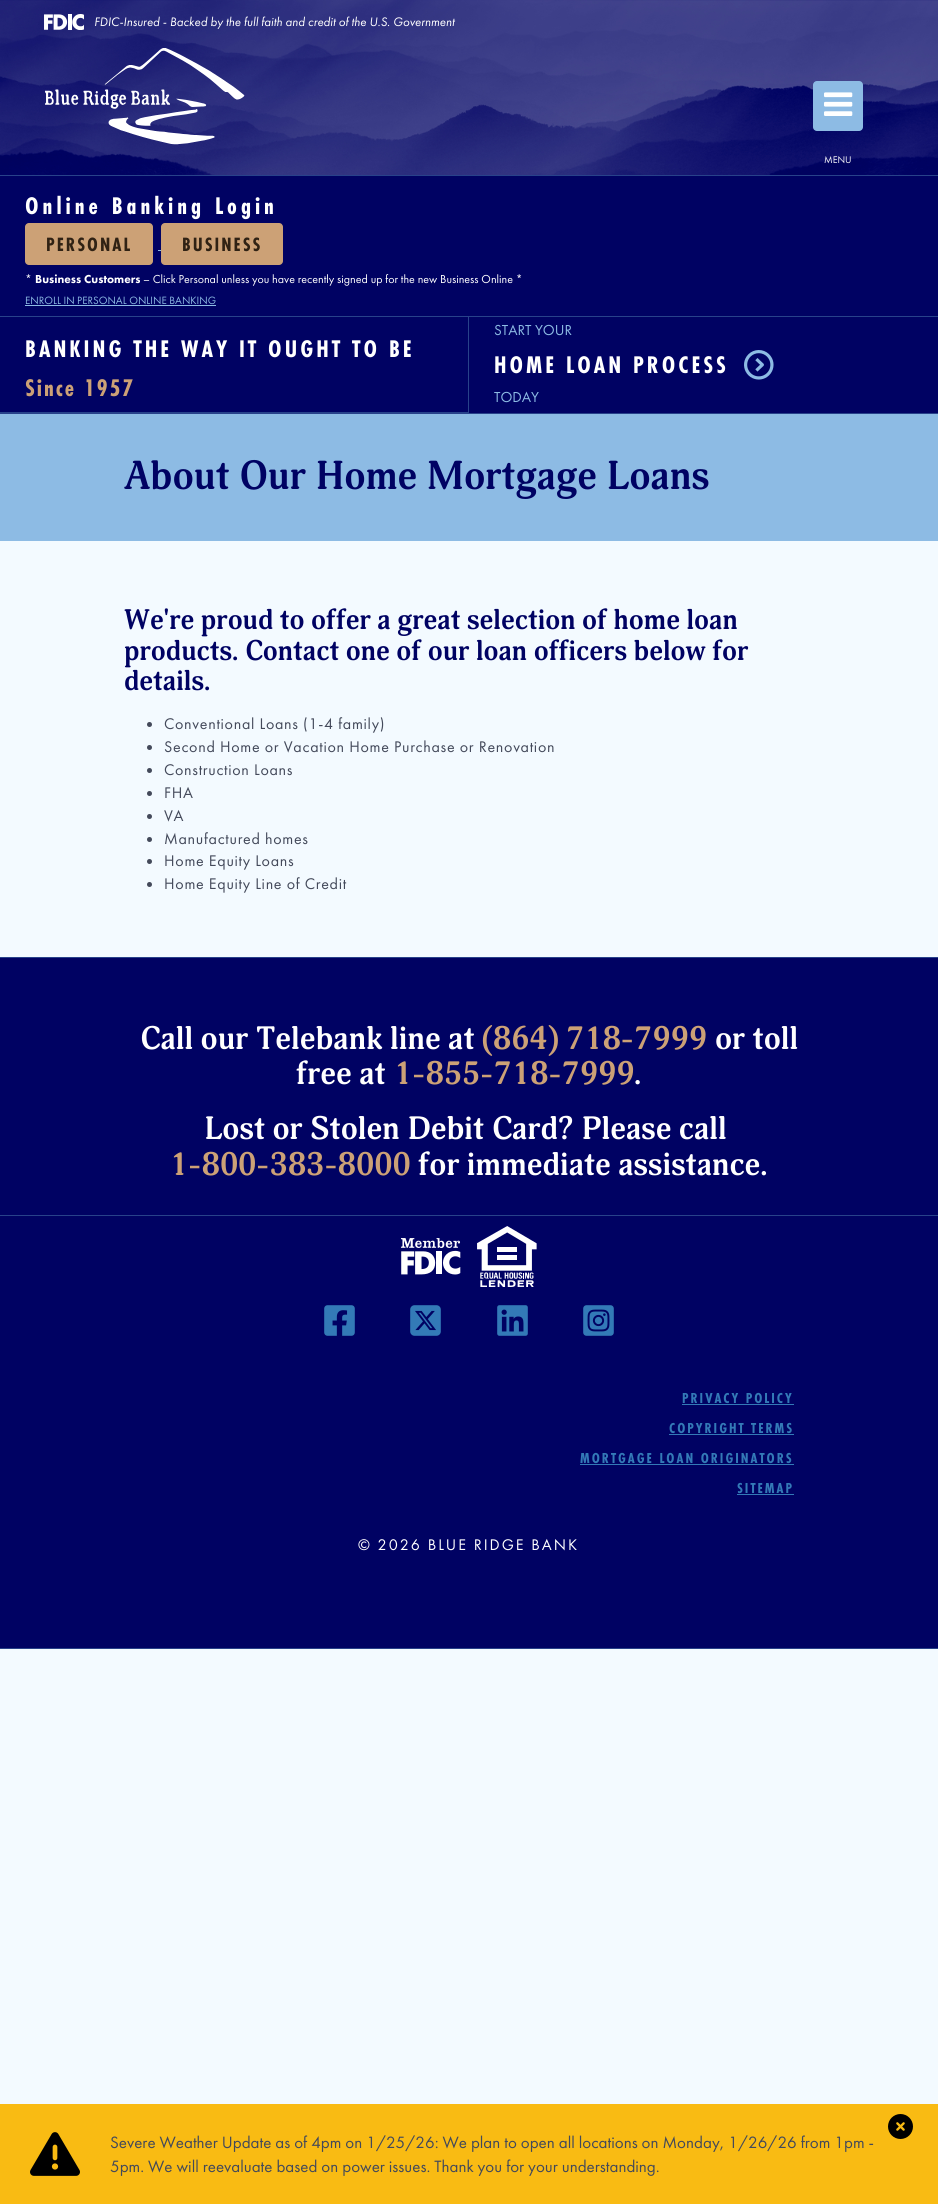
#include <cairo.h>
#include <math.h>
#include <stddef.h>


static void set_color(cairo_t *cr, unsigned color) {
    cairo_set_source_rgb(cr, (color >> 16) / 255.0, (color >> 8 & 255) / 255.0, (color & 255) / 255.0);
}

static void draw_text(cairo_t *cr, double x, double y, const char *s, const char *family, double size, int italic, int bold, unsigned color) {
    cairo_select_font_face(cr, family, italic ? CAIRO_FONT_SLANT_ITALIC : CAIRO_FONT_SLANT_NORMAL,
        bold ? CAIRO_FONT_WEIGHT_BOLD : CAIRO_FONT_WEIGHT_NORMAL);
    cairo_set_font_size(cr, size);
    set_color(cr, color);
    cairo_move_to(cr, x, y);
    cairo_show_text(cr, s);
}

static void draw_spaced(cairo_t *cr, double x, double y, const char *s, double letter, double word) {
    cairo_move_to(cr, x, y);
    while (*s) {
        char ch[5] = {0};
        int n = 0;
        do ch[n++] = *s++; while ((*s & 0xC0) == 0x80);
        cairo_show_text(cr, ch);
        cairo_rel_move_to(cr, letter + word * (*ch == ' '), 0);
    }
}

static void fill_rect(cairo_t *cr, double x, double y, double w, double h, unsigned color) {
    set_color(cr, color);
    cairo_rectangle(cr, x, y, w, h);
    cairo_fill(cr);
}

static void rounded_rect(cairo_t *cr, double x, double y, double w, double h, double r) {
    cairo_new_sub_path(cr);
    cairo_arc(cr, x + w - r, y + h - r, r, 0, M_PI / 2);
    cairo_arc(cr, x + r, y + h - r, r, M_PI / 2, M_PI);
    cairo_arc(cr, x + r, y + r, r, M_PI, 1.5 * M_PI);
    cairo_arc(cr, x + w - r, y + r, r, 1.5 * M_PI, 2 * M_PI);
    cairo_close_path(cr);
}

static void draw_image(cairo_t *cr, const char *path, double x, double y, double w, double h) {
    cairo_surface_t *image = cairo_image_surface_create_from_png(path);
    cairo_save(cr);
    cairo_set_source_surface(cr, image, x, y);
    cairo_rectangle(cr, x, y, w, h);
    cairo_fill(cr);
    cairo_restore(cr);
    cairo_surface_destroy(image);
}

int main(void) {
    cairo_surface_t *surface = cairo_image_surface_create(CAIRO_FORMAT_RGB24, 938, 2204);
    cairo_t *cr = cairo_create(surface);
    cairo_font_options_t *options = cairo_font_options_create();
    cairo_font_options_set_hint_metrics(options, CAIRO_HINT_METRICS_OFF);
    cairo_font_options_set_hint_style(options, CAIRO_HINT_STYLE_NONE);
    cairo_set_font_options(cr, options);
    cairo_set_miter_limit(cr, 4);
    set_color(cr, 0xF3FAFF);
    cairo_paint(cr);
    draw_image(cr, "assets/img1.png", 0, 0, 938, 175);
    draw_image(cr, "assets/img2.png", 44, 14, 40, 16);
    draw_text(cr, 94, 26, "FDIC-Insured - Backed by the full faith and credit of the U.S. Government", "Futura PT", 12.8, 1, 0, 0xFFFFFF);
    draw_image(cr, "assets/img3.png", 45, 48, 200, 97);
    set_color(cr, 0x8DBBE4);
    rounded_rect(cr, 813, 81, 50, 50, 4);
    cairo_fill(cr);
    draw_image(cr, "assets/img4.png", 824, 92, 29, 24);
    draw_text(cr, 824, 163, "MENU", "Futura PT", 10, 0, 0, 0xFFFFFF);
    fill_rect(cr, 0, 176, 938, 237, 0x000263);
    fill_rect(cr, 0, 175, 938, 1, 0x28428A);
    fill_rect(cr, 0, 413, 938, 1, 0x28428A);
    fill_rect(cr, 0, 316, 938, 1, 0x28428A);
    cairo_select_font_face(cr, "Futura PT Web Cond", CAIRO_FONT_SLANT_NORMAL, CAIRO_FONT_WEIGHT_BOLD);
    cairo_set_font_size(cr, 25);
    set_color(cr, 0xFFFFFF);
    draw_spaced(cr, 25, 214, "Online Banking Login", 4, 0);
    set_color(cr, 0xCCA176);
    rounded_rect(cr, 25, 223, 128, 42, 4);
    cairo_fill(cr);
    cairo_set_font_size(cr, 20);
    set_color(cr, 0x302214);
    draw_spaced(cr, 46, 251, "PERSONAL", 2, 0);
    fill_rect(cr, 158, 250, 3, 1, 0x8DBBE4);
    set_color(cr, 0xCCA176);
    rounded_rect(cr, 161, 223, 122, 42, 4);
    cairo_fill(cr);
    set_color(cr, 0x302214);
    draw_spaced(cr, 182, 251, "BUSINESS", 2, 0);
    draw_text(cr, 25, 283, "*", "Futura PT", 12, 0, 0, 0xFFFFFF);
    draw_text(cr, 35, 283, "Business Customers", "Futura PT Black", 12, 0, 0, 0xFFFFFF);
    draw_text(cr, 143, 283, "– Click Personal unless you have recently signed up for the new Business Online *", "Futura PT", 12, 0, 0, 0xFFFFFF);
    draw_text(cr, 25, 304, "ENROLL IN PERSONAL ONLINE BANKING", "Futura PT", 11, 0, 0, 0x8DBBE4);
    fill_rect(cr, 25, 305, 191, 1, 0x8DBBE4);
    fill_rect(cr, 468, 317, 1, 96, 0x28428A);
    fill_rect(cr, 0, 412, 469, 1, 0x28428A);
    cairo_select_font_face(cr, "Futura PT Web Cond", CAIRO_FONT_SLANT_NORMAL, CAIRO_FONT_WEIGHT_BOLD);
    cairo_set_font_size(cr, 25);
    set_color(cr, 0xFFFFFF);
    draw_spaced(cr, 25, 357, "BANKING THE WAY IT OUGHT TO BE", 3, 0);
    set_color(cr, 0xCCA176);
    draw_spaced(cr, 25, 396, "Since 1957", 2, 0);
    draw_text(cr, 494, 335, "START YOUR", "Futura PT", 15, 0, 0, 0x8DBBE4);
    cairo_select_font_face(cr, "Futura PT Web Cond", CAIRO_FONT_SLANT_NORMAL, CAIRO_FONT_WEIGHT_BOLD);
    cairo_set_font_size(cr, 25);
    set_color(cr, 0xFFFFFF);
    draw_spaced(cr, 494, 373, "HOME LOAN PROCESS", 3, 0);
    draw_text(cr, 494, 402, "TODAY", "Futura PT", 15, 0, 0, 0x8DBBE4);
    draw_image(cr, "assets/img5.png", 744, 350, 30, 30);
    fill_rect(cr, 0, 414, 938, 127, 0x8DBBE4);
    draw_text(cr, 124, 489, "About Our Home Mortgage Loans", "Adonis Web", 40, 0, 1, 0x000263);
    draw_text(cr, 124, 629, "We're proud to offer a great selection of home loan", "Adonis Web", 28, 0, 1, 0x000263);
    draw_text(cr, 124, 660, "products. Contact one of our loan officers below for", "Adonis Web", 28, 0, 1, 0x000263);
    draw_text(cr, 124, 690, "details.", "Adonis Web", 28, 0, 1, 0x000263);
    set_color(cr, 0x43495A);
    cairo_new_path(cr);
    cairo_arc(cr, 149.5, 724.5, 2.5, 0, 2 * M_PI);
    cairo_fill(cr);
    cairo_select_font_face(cr, "Futura PT", CAIRO_FONT_SLANT_NORMAL, CAIRO_FONT_WEIGHT_NORMAL);
    cairo_set_font_size(cr, 16);
    draw_spaced(cr, 164, 729, "Conventional Loans (1-4 family)", 0.7, 0);
    cairo_new_path(cr);
    cairo_arc(cr, 149.5, 747.5, 2.5, 0, 2 * M_PI);
    cairo_fill(cr);
    draw_spaced(cr, 164, 752, "Second Home or Vacation Home Purchase or Renovation", 0.7, 0);
    cairo_new_path(cr);
    cairo_arc(cr, 149.5, 770.5, 2.5, 0, 2 * M_PI);
    cairo_fill(cr);
    draw_spaced(cr, 164, 775, "Construction Loans", 0.7, 0);
    cairo_new_path(cr);
    cairo_arc(cr, 149.5, 793.5, 2.5, 0, 2 * M_PI);
    cairo_fill(cr);
    draw_spaced(cr, 164, 798, "FHA", 0.7, 0);
    cairo_new_path(cr);
    cairo_arc(cr, 149.5, 816.5, 2.5, 0, 2 * M_PI);
    cairo_fill(cr);
    draw_spaced(cr, 164, 821, "VA", 0.7, 0);
    cairo_new_path(cr);
    cairo_arc(cr, 149.5, 839.5, 2.5, 0, 2 * M_PI);
    cairo_fill(cr);
    draw_spaced(cr, 164, 844, "Manufactured homes", 0.7, 0);
    cairo_new_path(cr);
    cairo_arc(cr, 149.5, 861.5, 2.5, 0, 2 * M_PI);
    cairo_fill(cr);
    draw_spaced(cr, 164, 866, "Home Equity Loans", 0.7, 0);
    cairo_new_path(cr);
    cairo_arc(cr, 149.5, 884.5, 2.5, 0, 2 * M_PI);
    cairo_fill(cr);
    draw_spaced(cr, 164, 889, "Home Equity Line of Credit", 0.7, 0);
    fill_rect(cr, 0, 958, 938, 690, 0x000263);
    fill_rect(cr, 0, 957, 938, 1, 0x28428A);
    fill_rect(cr, 0, 1648, 938, 1, 0x28428A);
    fill_rect(cr, 0, 1215, 938, 1, 0x28428A);
    draw_text(cr, 140, 1049, "Call our Telebank line at", "Adonis Web", 32, 0, 1, 0xFFFFFF);
    draw_text(cr, 482, 1049, "(864) 718-7999", "Adonis Web", 32, 0, 1, 0xCCA176);
    draw_text(cr, 715, 1049, "or toll", "Adonis Web", 32, 0, 1, 0xFFFFFF);
    draw_text(cr, 296, 1084, "free at", "Adonis Web", 32, 0, 1, 0xFFFFFF);
    draw_text(cr, 394, 1084, "1-855-718-7999", "Adonis Web", 32, 0, 1, 0xCCA176);
    draw_text(cr, 634, 1084, ".", "Adonis Web", 32, 0, 1, 0xFFFFFF);
    draw_text(cr, 204, 1139, "Lost or Stolen Debit Card? Please call", "Adonis Web", 32, 0, 1, 0xFFFFFF);
    draw_text(cr, 170, 1175, "1-800-383-8000", "Adonis Web", 32, 0, 1, 0xCCA176);
    draw_text(cr, 418, 1175, "for immediate assistance.", "Adonis Web", 32, 0, 1, 0xFFFFFF);
    draw_image(cr, "assets/img6.png", 401, 1238, 60, 37);
    draw_image(cr, "assets/img7.png", 477, 1226, 60, 61);
    draw_image(cr, "assets/img8.png", 324, 1305, 31, 31);
    draw_image(cr, "assets/img9.png", 410, 1305, 31, 31);
    draw_image(cr, "assets/img10.png", 497, 1305, 31, 31);
    draw_image(cr, "assets/img11.png", 583, 1305, 31, 31);
    cairo_select_font_face(cr, "Futura PT Web Cond", CAIRO_FONT_SLANT_NORMAL, CAIRO_FONT_WEIGHT_BOLD);
    cairo_set_font_size(cr, 15);
    set_color(cr, 0x337AB7);
    draw_spaced(cr, 682, 1403, "PRIVACY POLICY", 2, 0);
    fill_rect(cr, 682, 1404, 112, 1, 0x337AB7);
    draw_spaced(cr, 669, 1433, "COPYRIGHT TERMS", 2, 0);
    fill_rect(cr, 669, 1434, 125, 1, 0x337AB7);
    draw_spaced(cr, 580, 1463, "MORTGAGE LOAN ORIGINATORS", 2, 0);
    fill_rect(cr, 580, 1464, 214, 1, 0x337AB7);
    draw_spaced(cr, 737, 1493, "SITEMAP", 2, 0);
    fill_rect(cr, 737, 1494, 57, 1, 0x337AB7);
    cairo_select_font_face(cr, "Futura PT", CAIRO_FONT_SLANT_NORMAL, CAIRO_FONT_WEIGHT_NORMAL);
    cairo_set_font_size(cr, 16);
    set_color(cr, 0xFFFFFF);
    draw_spaced(cr, 358, 1550, "© 2026 BLUE RIDGE BANK", 2, 0);
    fill_rect(cr, 0, 2104, 938, 100, 0xF9BB13);
    draw_image(cr, "assets/img12.png", 888, 2114, 25, 25);
    draw_image(cr, "assets/img13.png", 30, 2132, 50, 44);
    draw_text(cr, 110, 2148, "Severe Weather Update as of 4pm on 1/25/26: We plan to open all locations on Monday, 1/26/26 from 1pm -", "Futura PT", 17, 0, 0, 0x43495A);
    draw_text(cr, 110, 2172, "5pm. We will reevaluate based on power issues. Thank you for your understanding.", "Futura PT", 17, 0, 0, 0x43495A);
    cairo_surface_write_to_png(surface, "output.png");
    cairo_font_options_destroy(options);
    cairo_destroy(cr);
    cairo_surface_destroy(surface);
    return 0;
}
